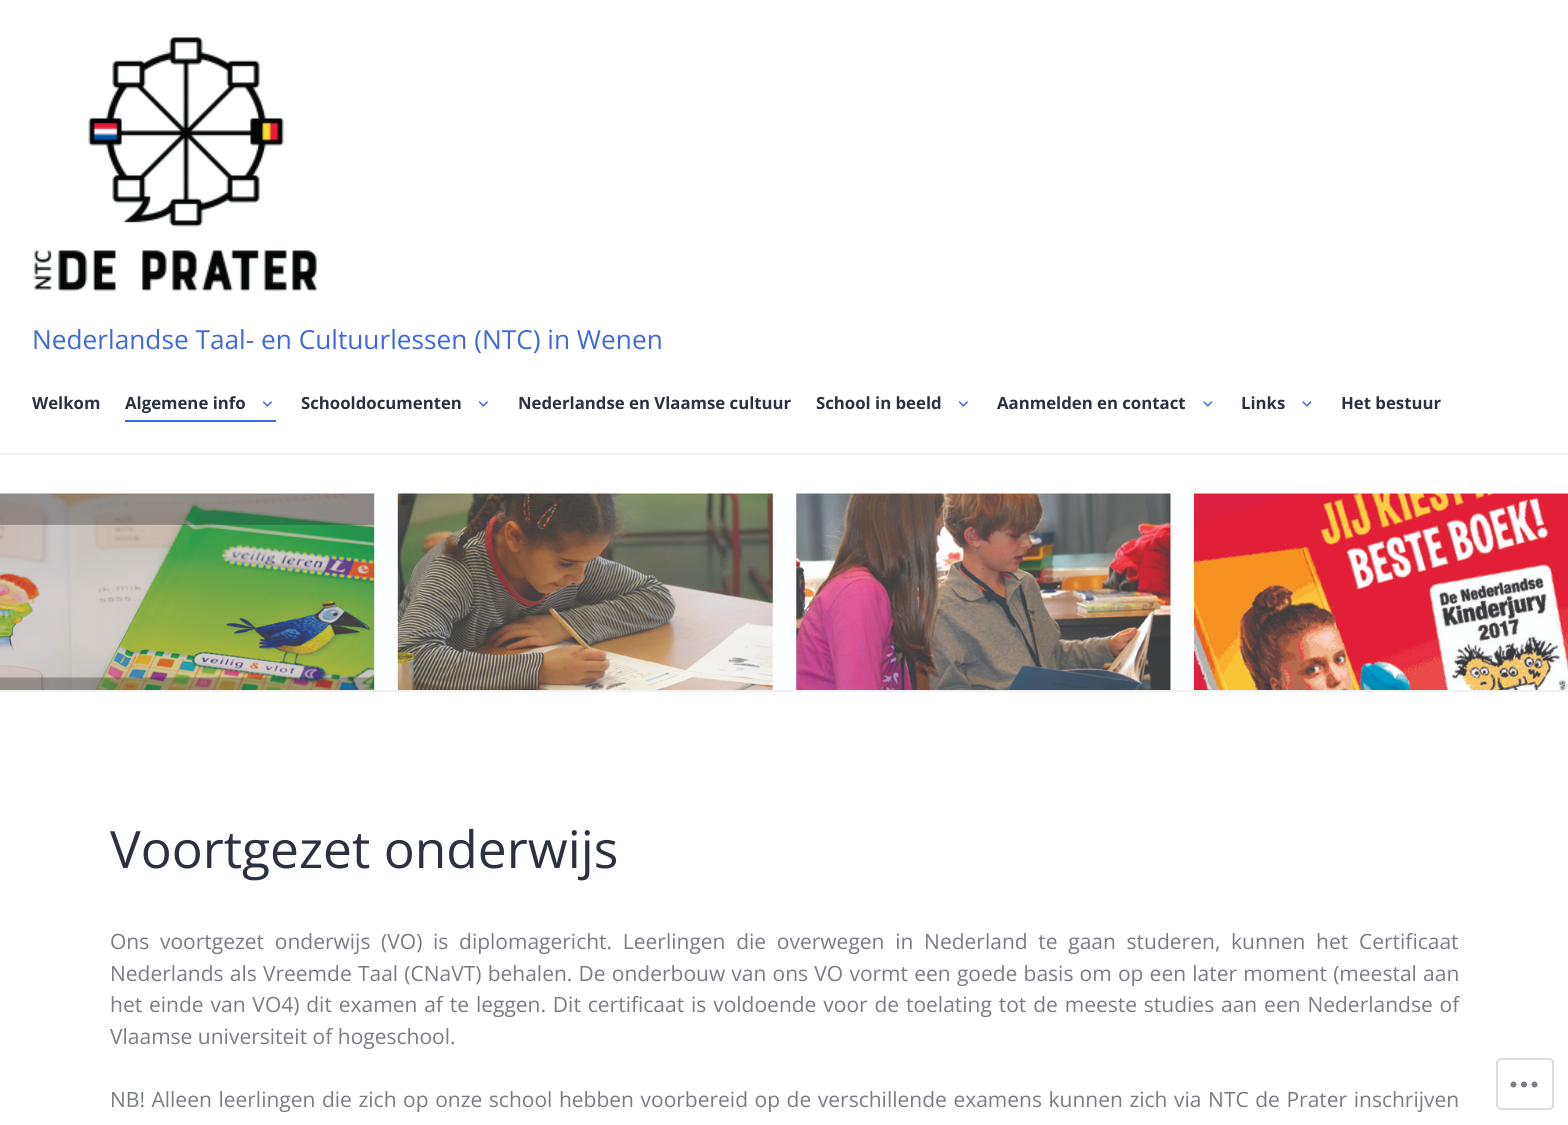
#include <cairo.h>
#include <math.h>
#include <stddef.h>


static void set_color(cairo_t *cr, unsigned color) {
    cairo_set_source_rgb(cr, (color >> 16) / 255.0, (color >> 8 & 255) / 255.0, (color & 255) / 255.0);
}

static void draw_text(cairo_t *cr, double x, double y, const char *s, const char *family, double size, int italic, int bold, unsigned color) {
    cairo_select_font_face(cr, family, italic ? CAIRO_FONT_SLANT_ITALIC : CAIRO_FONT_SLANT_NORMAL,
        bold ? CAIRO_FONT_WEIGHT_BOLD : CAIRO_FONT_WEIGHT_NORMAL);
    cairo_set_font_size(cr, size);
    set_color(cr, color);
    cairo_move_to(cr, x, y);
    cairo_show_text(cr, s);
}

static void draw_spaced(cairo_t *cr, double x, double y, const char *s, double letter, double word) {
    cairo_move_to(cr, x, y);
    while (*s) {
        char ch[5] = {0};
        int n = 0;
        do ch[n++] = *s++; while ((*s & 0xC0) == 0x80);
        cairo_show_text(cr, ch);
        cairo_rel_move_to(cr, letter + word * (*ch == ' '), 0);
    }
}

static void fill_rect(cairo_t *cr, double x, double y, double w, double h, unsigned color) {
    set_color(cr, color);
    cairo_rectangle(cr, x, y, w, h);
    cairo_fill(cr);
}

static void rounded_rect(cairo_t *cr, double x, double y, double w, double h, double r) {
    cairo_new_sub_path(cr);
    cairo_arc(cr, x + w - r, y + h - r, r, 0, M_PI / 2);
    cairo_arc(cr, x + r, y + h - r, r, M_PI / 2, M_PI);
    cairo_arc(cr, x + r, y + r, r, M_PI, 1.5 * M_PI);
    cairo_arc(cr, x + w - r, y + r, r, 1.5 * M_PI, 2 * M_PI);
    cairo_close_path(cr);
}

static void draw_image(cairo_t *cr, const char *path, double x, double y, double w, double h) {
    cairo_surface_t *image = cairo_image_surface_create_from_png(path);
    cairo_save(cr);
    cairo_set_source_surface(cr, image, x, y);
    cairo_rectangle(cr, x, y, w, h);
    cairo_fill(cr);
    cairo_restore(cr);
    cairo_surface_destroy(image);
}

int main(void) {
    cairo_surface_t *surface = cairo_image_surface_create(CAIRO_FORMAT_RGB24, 1568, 1125);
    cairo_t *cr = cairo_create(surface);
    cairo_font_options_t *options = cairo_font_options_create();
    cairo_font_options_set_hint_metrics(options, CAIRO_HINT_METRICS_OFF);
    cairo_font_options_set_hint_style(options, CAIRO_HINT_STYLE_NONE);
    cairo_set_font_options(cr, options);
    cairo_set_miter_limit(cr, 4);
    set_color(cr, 0xFFFFFF);
    cairo_paint(cr);
    fill_rect(cr, 0, 453, 1568, 2, 0xF2F2F2);
    draw_image(cr, "assets/img1.png", 34, 37, 283, 255);
    draw_text(cr, 32, 349, "Nederlandse Taal- en Cultuurlessen (NTC) in Wenen", "Open Sans", 26.25, 0, 0, 0x3E69DC);
    draw_text(cr, 32, 409, "Welkom", "Open Sans", 16.75, 0, 1, 0x2C313F);
    fill_rect(cr, 125, 420, 151, 2, 0x3E69DC);
    draw_text(cr, 125, 409, "Algemene info", "Open Sans", 16.75, 0, 1, 0x2C313F);
    draw_image(cr, "assets/img2.png", 262, 401, 10, 6);
    draw_text(cr, 301, 409, "Schooldocumenten", "Open Sans", 16.75, 0, 1, 0x2C313F);
    draw_image(cr, "assets/img2.png", 478, 401, 10, 6);
    draw_text(cr, 518, 409, "Nederlandse en Vlaamse cultuur", "Open Sans", 16.75, 0, 1, 0x2C313F);
    draw_text(cr, 816, 409, "School in beeld", "Open Sans", 16.75, 0, 1, 0x2C313F);
    draw_image(cr, "assets/img2.png", 958, 401, 10, 6);
    draw_text(cr, 997, 409, "Aanmelden en contact", "Open Sans", 16.75, 0, 1, 0x2C313F);
    draw_image(cr, "assets/img3.png", 1203, 401, 10, 6);
    draw_text(cr, 1241, 409, "Links", "Open Sans", 16.75, 0, 1, 0x2C313F);
    draw_image(cr, "assets/img3.png", 1302, 401, 10, 6);
    draw_text(cr, 1341, 409, "Het bestuur", "Open Sans", 16.75, 0, 1, 0x2C313F);
    fill_rect(cr, 0, 690, 1568, 2, 0xF2F2F2);
    draw_image(cr, "assets/img4.png", 0, 493, 1568, 197);
    draw_text(cr, 110, 868, "Voortgezet onderwijs", "Open Sans", 51.5, 0, 0, 0x2C313F);
    cairo_set_font_size(cr, 21);
    set_color(cr, 0x7A7C84);
    draw_spaced(cr, 110, 949, "Ons voortgezet onderwijs (VO) is diplomagericht. Leerlingen die overwegen in Nederland te gaan studeren, kunnen het Certificaat", 0, 5.25);
    draw_spaced(cr, 110, 981, "Nederlands als Vreemde Taal (CNaVT) behalen. De onderbouw van ons VO vormt een goede basis om op een later moment (meestal aan", 0, 0.75);
    draw_spaced(cr, 110, 1012, "het einde van VO4) dit examen af te leggen. Dit certificaat is voldoende voor de toelating tot de meeste studies aan een Nederlandse of", 0, 1.4);
    draw_text(cr, 110, 1044, "Vlaamse universiteit of hogeschool.", "Open Sans", 21, 0, 0, 0x7A7C84);
    draw_spaced(cr, 110, 1107, "NB! Alleen leerlingen die zich op onze school hebben voorbereid op de verschillende examens kunnen zich via NTC de Prater inschrijven", 0, 1.1);
    rounded_rect(cr, 1497, 1059, 56, 50, 4);
    set_color(cr, 0xDDDDDF);
    cairo_stroke(cr);
    draw_image(cr, "assets/img5.png", 1510, 1081, 28, 7);
    cairo_surface_write_to_png(surface, "output.png");
    cairo_font_options_destroy(options);
    cairo_destroy(cr);
    cairo_surface_destroy(surface);
    return 0;
}
